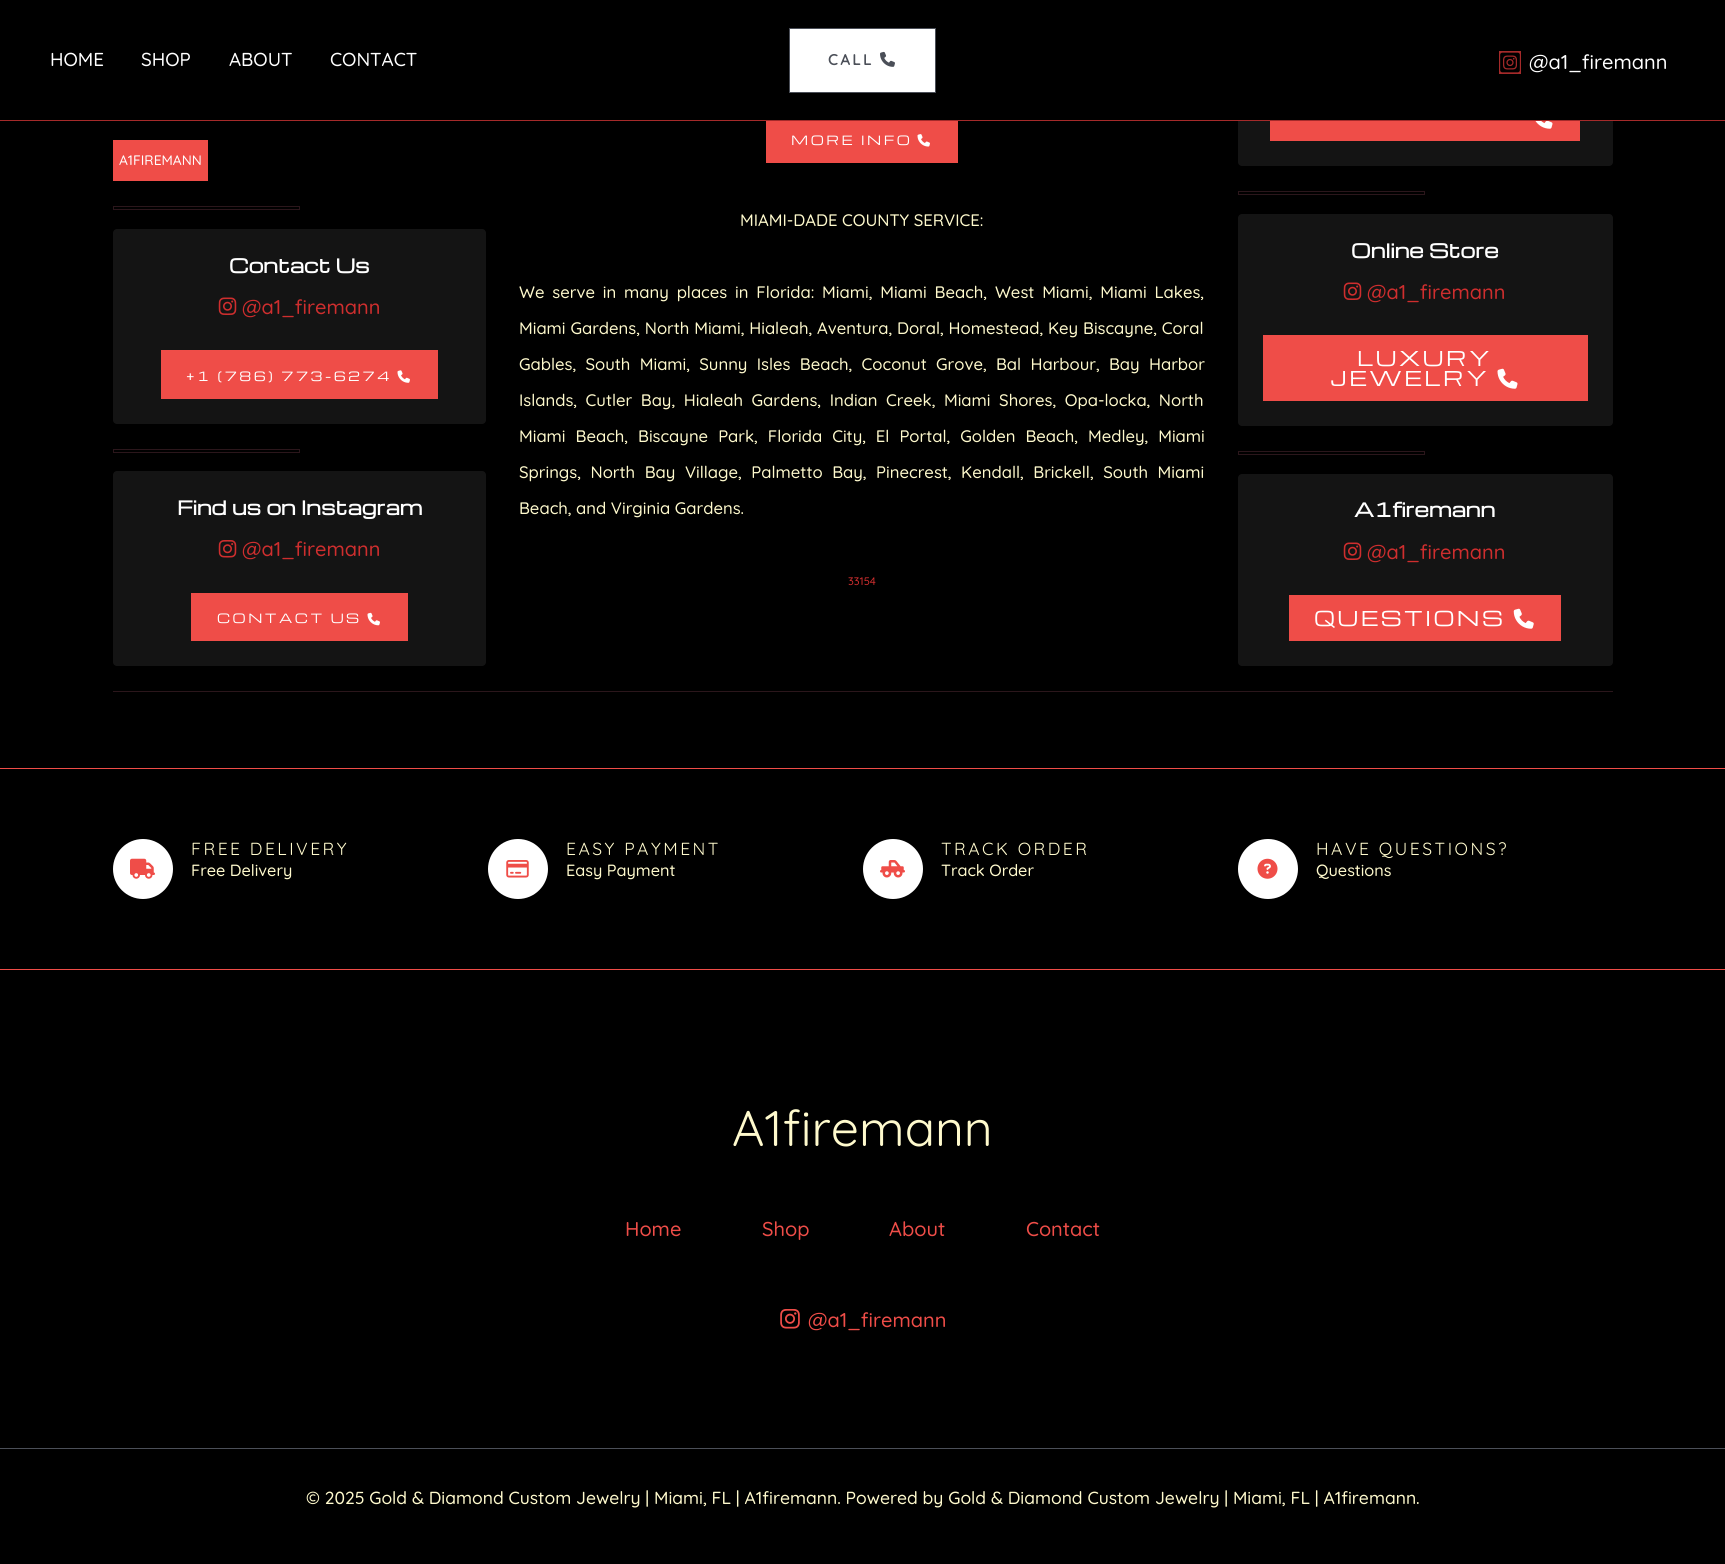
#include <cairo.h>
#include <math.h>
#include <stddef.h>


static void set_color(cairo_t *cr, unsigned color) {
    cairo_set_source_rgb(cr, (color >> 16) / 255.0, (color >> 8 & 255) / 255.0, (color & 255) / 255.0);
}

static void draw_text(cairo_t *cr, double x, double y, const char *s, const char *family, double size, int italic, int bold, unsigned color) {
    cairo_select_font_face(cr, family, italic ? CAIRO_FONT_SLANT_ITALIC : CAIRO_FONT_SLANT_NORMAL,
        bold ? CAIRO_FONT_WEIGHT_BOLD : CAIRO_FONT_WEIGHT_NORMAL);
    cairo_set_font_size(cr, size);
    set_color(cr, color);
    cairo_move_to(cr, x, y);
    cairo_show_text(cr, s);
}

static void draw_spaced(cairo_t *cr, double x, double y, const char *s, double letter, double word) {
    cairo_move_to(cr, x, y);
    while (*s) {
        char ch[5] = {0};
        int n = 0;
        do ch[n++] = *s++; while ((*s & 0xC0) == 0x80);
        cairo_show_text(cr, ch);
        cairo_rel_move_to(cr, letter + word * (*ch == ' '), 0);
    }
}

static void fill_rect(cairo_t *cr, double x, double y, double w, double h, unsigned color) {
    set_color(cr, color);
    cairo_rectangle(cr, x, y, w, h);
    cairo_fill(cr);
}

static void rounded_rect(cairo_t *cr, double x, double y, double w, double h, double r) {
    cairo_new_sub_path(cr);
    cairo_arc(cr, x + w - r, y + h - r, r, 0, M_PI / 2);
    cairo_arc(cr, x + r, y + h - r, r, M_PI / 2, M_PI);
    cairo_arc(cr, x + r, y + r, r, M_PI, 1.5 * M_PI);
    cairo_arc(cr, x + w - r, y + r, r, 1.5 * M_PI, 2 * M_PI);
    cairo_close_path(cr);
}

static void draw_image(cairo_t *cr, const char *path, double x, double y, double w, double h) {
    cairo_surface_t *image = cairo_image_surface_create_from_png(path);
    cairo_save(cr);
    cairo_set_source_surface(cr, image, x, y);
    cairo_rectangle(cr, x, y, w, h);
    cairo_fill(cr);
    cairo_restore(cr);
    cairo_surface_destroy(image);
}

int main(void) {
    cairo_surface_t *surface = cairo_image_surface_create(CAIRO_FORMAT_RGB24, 1725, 1564);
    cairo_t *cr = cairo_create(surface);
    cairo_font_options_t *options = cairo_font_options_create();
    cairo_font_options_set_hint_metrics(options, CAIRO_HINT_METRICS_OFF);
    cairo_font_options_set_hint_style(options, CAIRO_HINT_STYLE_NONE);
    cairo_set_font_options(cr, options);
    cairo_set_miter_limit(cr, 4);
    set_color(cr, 0x000000);
    cairo_paint(cr);
    set_color(cr, 0x141414);
    rounded_rect(cr, 1238, -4, 375, 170, 4);
    cairo_fill(cr);
    fill_rect(cr, 1238, 0, 375, 120, 0x000000);
    fill_rect(cr, 0, 120, 1725, 1, 0xA52A2A);
    draw_text(cr, 50, 66, "HOME", "Quicksand Medium", 18.75, 0, 0, 0xFFFFFF);
    draw_text(cr, 141, 66, "SHOP", "Quicksand Medium", 18.75, 0, 0, 0xFFFFFF);
    draw_text(cr, 229, 66, "ABOUT", "Quicksand Medium", 18.75, 0, 0, 0xFFFFFF);
    draw_text(cr, 330, 66, "CONTACT", "Quicksand Medium", 18.75, 0, 0, 0xFFFFFF);
    cairo_rectangle(cr, 789.5, 28.5, 146, 64);
    cairo_fill_preserve(cr);
    set_color(cr, 0x4B4F58);
    cairo_set_line_width(cr, 1);
    cairo_stroke(cr);
    cairo_select_font_face(cr, "Quicksand", CAIRO_FONT_SLANT_NORMAL, CAIRO_FONT_WEIGHT_BOLD);
    cairo_set_font_size(cr, 15);
    draw_spaced(cr, 828, 65, "CALL", 2.5, 0);
    draw_image(cr, "assets/img1.png", 880, 51, 15, 16);
    fill_rect(cr, 1499, 51, 22, 23, 0xA52A2A);
    draw_image(cr, "assets/img2.png", 1500, 52, 20, 21);
    draw_text(cr, 1529, 69, "@a1_firemann", "Quicksand Medium", 20, 0, 0, 0xFFFFFF);
    fill_rect(cr, 113, 691, 1500, 1, 0x2B161B);
    fill_rect(cr, 113, 140, 95, 41, 0xEF4D48);
    draw_text(cr, 119, 165, "A1FIREMANN", "Quicksand Medium", 13.75, 0, 0, 0xFFFFFF);
    cairo_rectangle(cr, 113.5, 206.5, 186, 3);
    set_color(cr, 0x2B161B);
    cairo_stroke(cr);
    set_color(cr, 0x141414);
    rounded_rect(cr, 113, 229, 373, 195, 4);
    cairo_fill(cr);
    draw_text(cr, 229, 273, "Contact Us", "Michroma", 18.75, 0, 1, 0xFFFFFF);
    draw_image(cr, "assets/img3.png", 218, 297, 19, 18);
    draw_text(cr, 242, 314, "@a1_firemann", "Quicksand Medium", 20, 0, 0, 0xCF2E2E);
    fill_rect(cr, 161, 350, 277, 49, 0xEF4D48);
    cairo_select_font_face(cr, "Michroma", CAIRO_FONT_SLANT_NORMAL, CAIRO_FONT_WEIGHT_NORMAL);
    cairo_set_font_size(cr, 12.5);
    set_color(cr, 0xFFFFFF);
    draw_spaced(cr, 186, 381, "+1 (786) 773-6274", 2.5, 0);
    draw_image(cr, "assets/img4.png", 397, 370, 13, 13);
    cairo_rectangle(cr, 113.5, 449.5, 186, 3);
    set_color(cr, 0x2B161B);
    cairo_stroke(cr);
    set_color(cr, 0x141414);
    rounded_rect(cr, 113, 471, 373, 195, 4);
    cairo_fill(cr);
    draw_text(cr, 177, 515, "Find us on Instagram", "Michroma", 18.75, 0, 1, 0xFFFFFF);
    draw_image(cr, "assets/img5.png", 218, 540, 19, 18);
    draw_text(cr, 242, 556, "@a1_firemann", "Quicksand Medium", 20, 0, 0, 0xCF2E2E);
    fill_rect(cr, 191, 593, 217, 48, 0xEF4D48);
    cairo_select_font_face(cr, "Michroma", CAIRO_FONT_SLANT_NORMAL, CAIRO_FONT_WEIGHT_NORMAL);
    cairo_set_font_size(cr, 12.5);
    set_color(cr, 0xFFFFFF);
    draw_spaced(cr, 217, 623, "CONTACT US", 2.5, 0);
    draw_image(cr, "assets/img6.png", 367, 612, 13, 14);
    fill_rect(cr, 766, 121, 192, 42, 0xEF4D48);
    set_color(cr, 0xFFFFFF);
    draw_spaced(cr, 791, 145, "MORE INFO", 2.5, 0);
    draw_image(cr, "assets/img7.png", 917, 134, 13, 13);
    draw_text(cr, 740, 226, "MIAMI-DADE COUNTY SERVICE:", "Quicksand Medium", 16.65, 0, 0, 0xFFFACD);
    draw_spaced(cr, 519, 298, "We serve in many places in Florida: Miami, Miami Beach, West Miami, Miami Lakes,", 0, 3.25);
    draw_spaced(cr, 519, 334, "Miami Gardens, North Miami, Hialeah, Aventura, Doral, Homestead, Key Biscayne, Coral", 0, 0.25);
    draw_spaced(cr, 519, 370, "Gables, South Miami, Sunny Isles Beach, Coconut Grove, Bal Harbour, Bay Harbor", 0, 4.75);
    draw_spaced(cr, 519, 406, "Islands, Cutler Bay, Hialeah Gardens, Indian Creek, Miami Shores, Opa-locka, North", 0, 4);
    draw_spaced(cr, 519, 442, "Miami Beach, Biscayne Park, Florida City, El Portal, Golden Beach, Medley, Miami", 0, 5.4);
    draw_spaced(cr, 519, 478, "Springs, North Bay Village, Palmetto Bay, Pinecrest, Kendall, Brickell, South Miami", 0, 5);
    draw_text(cr, 519, 514, "Beach, and Virginia Gardens.", "Quicksand Medium", 16.65, 0, 0, 0xFFFACD);
    draw_text(cr, 848, 585, "33154", "Quicksand Medium", 11, 0, 0, 0xCF2E2E);
    fill_rect(cr, 1270, 121, 310, 20, 0xEF4D48);
    draw_image(cr, "assets/img8.png", 1535, 121, 18, 8);
    cairo_rectangle(cr, 1238.5, 191.5, 186, 3);
    set_color(cr, 0x2B161B);
    cairo_stroke(cr);
    set_color(cr, 0x141414);
    rounded_rect(cr, 1238, 214, 375, 212, 4);
    cairo_fill(cr);
    draw_text(cr, 1351, 258, "Online Store", "Michroma", 18.75, 0, 1, 0xFFFFFF);
    draw_image(cr, "assets/img3.png", 1343, 282, 19, 18);
    draw_text(cr, 1367, 299, "@a1_firemann", "Quicksand Medium", 20, 0, 0, 0xCF2E2E);
    fill_rect(cr, 1263, 335, 325, 66, 0xEF4D48);
    cairo_select_font_face(cr, "Michroma", CAIRO_FONT_SLANT_NORMAL, CAIRO_FONT_WEIGHT_NORMAL);
    set_color(cr, 0xFFFFFF);
    draw_spaced(cr, 1357, 366, "LUXURY", 2.5, 0);
    draw_spaced(cr, 1330, 386, "JEWELRY", 2.5, 0);
    draw_image(cr, "assets/img9.png", 1497, 368, 21, 21);
    cairo_rectangle(cr, 1238.5, 451.5, 186, 3);
    set_color(cr, 0x2B161B);
    cairo_stroke(cr);
    set_color(cr, 0x141414);
    rounded_rect(cr, 1238, 474, 375, 192, 4);
    cairo_fill(cr);
    draw_text(cr, 1354, 517, "A1firemann", "Michroma", 18.75, 0, 1, 0xFFFFFF);
    draw_image(cr, "assets/img3.png", 1343, 542, 19, 18);
    draw_text(cr, 1367, 559, "@a1_firemann", "Quicksand Medium", 20, 0, 0, 0xCF2E2E);
    fill_rect(cr, 1289, 595, 272, 46, 0xEF4D48);
    cairo_select_font_face(cr, "Michroma", CAIRO_FONT_SLANT_NORMAL, CAIRO_FONT_WEIGHT_NORMAL);
    set_color(cr, 0xFFFFFF);
    draw_spaced(cr, 1314, 626, "QUESTIONS", 2.5, 0);
    draw_image(cr, "assets/img10.png", 1513, 608, 21, 21);
    fill_rect(cr, 0, 768, 1725, 1, 0xEF4D48);
    fill_rect(cr, 0, 969, 1725, 1, 0xEF4D48);
    set_color(cr, 0xFFFFFF);
    cairo_arc(cr, 143, 869, 30, 0, 2 * M_PI);
    cairo_fill(cr);
    draw_image(cr, "assets/img11.png", 130, 858, 25, 21);
    cairo_select_font_face(cr, "Quicksand", CAIRO_FONT_SLANT_NORMAL, CAIRO_FONT_WEIGHT_NORMAL);
    cairo_set_font_size(cr, 17.5);
    set_color(cr, 0xFFFACD);
    draw_spaced(cr, 191, 855, "FREE DELIVERY", 2.5, 0);
    draw_text(cr, 191, 876, "Free Delivery", "Quicksand Medium", 16.25, 0, 0, 0xFFFACD);
    set_color(cr, 0xFFFFFF);
    cairo_new_path(cr);
    cairo_arc(cr, 518, 869, 30, 0, 2 * M_PI);
    cairo_fill(cr);
    draw_image(cr, "assets/img12.png", 506, 860, 23, 18);
    cairo_select_font_face(cr, "Quicksand", CAIRO_FONT_SLANT_NORMAL, CAIRO_FONT_WEIGHT_NORMAL);
    cairo_set_font_size(cr, 17.5);
    set_color(cr, 0xFFFACD);
    draw_spaced(cr, 566, 855, "EASY PAYMENT", 2.5, 0);
    draw_text(cr, 566, 876, "Easy Payment", "Quicksand Medium", 16.25, 0, 0, 0xFFFACD);
    set_color(cr, 0xFFFFFF);
    cairo_new_path(cr);
    cairo_arc(cr, 893, 869, 30, 0, 2 * M_PI);
    cairo_fill(cr);
    draw_image(cr, "assets/img13.png", 880, 860, 25, 18);
    cairo_select_font_face(cr, "Quicksand", CAIRO_FONT_SLANT_NORMAL, CAIRO_FONT_WEIGHT_NORMAL);
    cairo_set_font_size(cr, 17.5);
    set_color(cr, 0xFFFACD);
    draw_spaced(cr, 941, 855, "TRACK ORDER", 2.5, 0);
    draw_text(cr, 941, 876, "Track Order", "Quicksand Medium", 16.25, 0, 0, 0xFFFACD);
    set_color(cr, 0xFFFFFF);
    cairo_new_path(cr);
    cairo_arc(cr, 1268, 869, 30, 0, 2 * M_PI);
    cairo_fill(cr);
    draw_image(cr, "assets/img14.png", 1257, 858, 21, 21);
    cairo_select_font_face(cr, "Quicksand", CAIRO_FONT_SLANT_NORMAL, CAIRO_FONT_WEIGHT_NORMAL);
    cairo_set_font_size(cr, 17.5);
    set_color(cr, 0xFFFACD);
    draw_spaced(cr, 1316, 855, "HAVE QUESTIONS?", 2.5, 0);
    draw_text(cr, 1316, 876, "Questions", "Quicksand Medium", 16.25, 0, 0, 0xFFFACD);
    draw_text(cr, 732, 1146, "A1firemann", "Quicksand", 50, 0, 0, 0xFFFACD);
    draw_text(cr, 625, 1236, "Home", "Quicksand Medium", 20, 0, 0, 0xEF4D48);
    draw_text(cr, 762, 1236, "Shop", "Quicksand Medium", 20, 0, 0, 0xEF4D48);
    draw_text(cr, 889, 1236, "About", "Quicksand Medium", 20, 0, 0, 0xEF4D48);
    draw_text(cr, 1026, 1236, "Contact", "Quicksand Medium", 20, 0, 0, 0xEF4D48);
    draw_image(cr, "assets/img15.png", 780, 1309, 20, 20);
    draw_text(cr, 808, 1327, "@a1_firemann", "Quicksand Medium", 20, 0, 0, 0xEF4D48);
    fill_rect(cr, 0, 1448, 1725, 1, 0x4B4F58);
    draw_text(cr, 306, 1504, "© 2025 Gold & Diamond Custom Jewelry | Miami, FL | A1firemann. Powered by Gold & Diamond Custom Jewelry | Miami, FL | A1firemann.", "Quicksand Medium", 17.5, 0, 0, 0xFFFACD);
    cairo_surface_write_to_png(surface, "output.png");
    cairo_font_options_destroy(options);
    cairo_destroy(cr);
    cairo_surface_destroy(surface);
    return 0;
}
